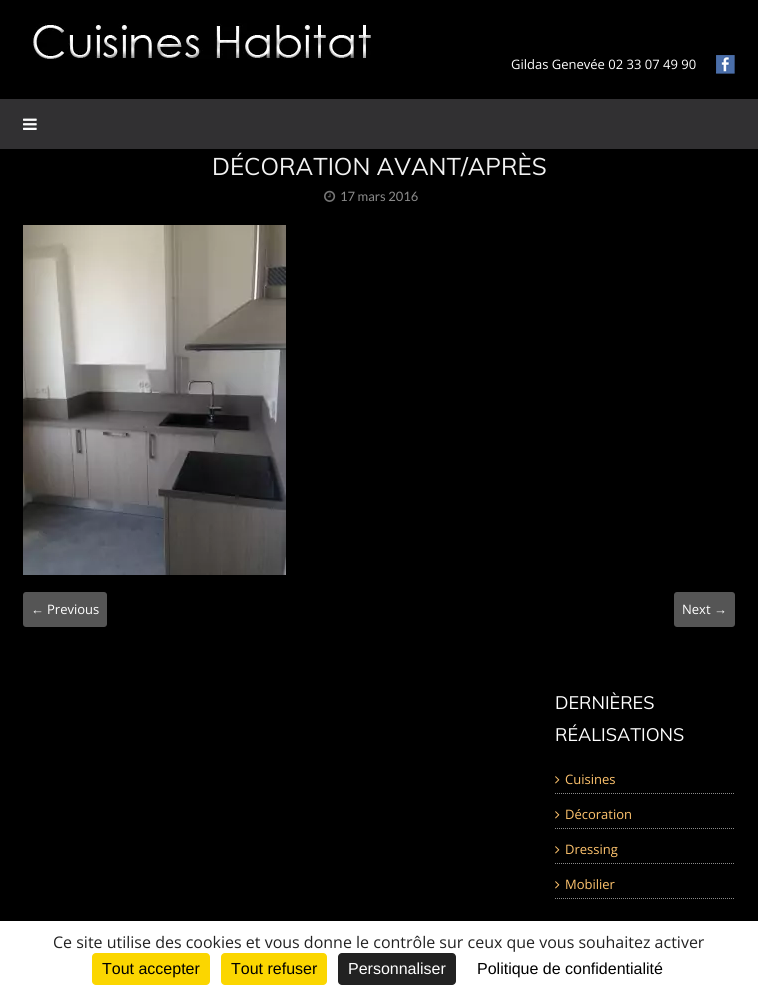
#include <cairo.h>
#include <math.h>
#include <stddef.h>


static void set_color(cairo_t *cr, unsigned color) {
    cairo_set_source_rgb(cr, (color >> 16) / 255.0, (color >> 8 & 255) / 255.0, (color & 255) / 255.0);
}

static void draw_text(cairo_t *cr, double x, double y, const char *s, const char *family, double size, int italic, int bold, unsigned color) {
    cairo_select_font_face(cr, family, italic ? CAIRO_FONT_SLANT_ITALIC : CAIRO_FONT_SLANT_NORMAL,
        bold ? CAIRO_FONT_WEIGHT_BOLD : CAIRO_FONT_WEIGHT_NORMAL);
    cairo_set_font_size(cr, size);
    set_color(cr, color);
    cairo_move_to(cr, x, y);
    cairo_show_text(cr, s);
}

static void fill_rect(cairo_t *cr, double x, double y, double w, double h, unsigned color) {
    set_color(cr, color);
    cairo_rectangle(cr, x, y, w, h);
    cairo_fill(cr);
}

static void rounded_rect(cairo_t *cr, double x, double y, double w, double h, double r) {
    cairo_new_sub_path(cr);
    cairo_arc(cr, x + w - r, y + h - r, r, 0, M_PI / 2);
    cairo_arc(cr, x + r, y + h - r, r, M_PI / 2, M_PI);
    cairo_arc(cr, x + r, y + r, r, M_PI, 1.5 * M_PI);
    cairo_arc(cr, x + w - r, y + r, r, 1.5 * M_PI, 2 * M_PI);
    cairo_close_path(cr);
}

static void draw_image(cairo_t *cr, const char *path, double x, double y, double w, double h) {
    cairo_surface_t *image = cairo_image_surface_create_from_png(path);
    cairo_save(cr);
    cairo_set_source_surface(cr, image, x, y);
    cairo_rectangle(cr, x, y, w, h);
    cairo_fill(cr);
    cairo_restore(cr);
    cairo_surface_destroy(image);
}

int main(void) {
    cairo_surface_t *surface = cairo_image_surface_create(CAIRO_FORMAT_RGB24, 758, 995);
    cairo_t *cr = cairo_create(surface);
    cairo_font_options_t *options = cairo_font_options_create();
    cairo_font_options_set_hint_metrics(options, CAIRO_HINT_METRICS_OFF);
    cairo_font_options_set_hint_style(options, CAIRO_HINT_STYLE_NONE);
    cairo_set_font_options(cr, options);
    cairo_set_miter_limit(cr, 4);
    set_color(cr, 0x000000);
    cairo_paint(cr);
    draw_image(cr, "assets/img1.png", 32, 23, 339, 36);
    draw_text(cr, 511, 69, "Gildas Genevée 02 33 07 49 90", "Open Sans", 13, 0, 0, 0xFFFFFF);
    draw_image(cr, "assets/img2.png", 716, 55, 19, 19);
    fill_rect(cr, 0, 99, 758, 50, 0x313032);
    draw_image(cr, "assets/img3.png", 23, 118, 14, 12);
    draw_text(cr, 212, 175, "DÉCORATION AVANT/APRÈS", "Muli", 24, 0, 0, 0xF2F2F2);
    draw_image(cr, "assets/img4.png", 324, 190, 12, 12);
    draw_text(cr, 340, 201, "17 mars 2016", "Lato", 13, 0, 0, 0x8B8B8B);
    draw_image(cr, "assets/img5.png", 23, 225, 263, 350);
    set_color(cr, 0x555555);
    rounded_rect(cr, 23, 592, 84, 35, 3);
    cairo_fill(cr);
    draw_text(cr, 31, 614, "←", "Liberation Serif", 13, 0, 0, 0xFFFFFF);
    draw_text(cr, 47, 614, "Previous", "Open Sans", 13, 0, 0, 0xFFFFFF);
    set_color(cr, 0x555555);
    rounded_rect(cr, 674, 592, 61, 35, 3);
    cairo_fill(cr);
    draw_text(cr, 682, 614, "Next", "Open Sans", 13, 0, 0, 0xFFFFFF);
    draw_text(cr, 714, 614, "→", "Liberation Serif", 13, 0, 0, 0xFFFFFF);
    draw_text(cr, 555, 709, "DERNIÈRES", "Muli", 18, 0, 0, 0xFFFFFF);
    draw_text(cr, 555, 741, "RÉALISATIONS", "Muli", 18, 0, 0, 0xFFFFFF);
    cairo_new_path(cr);
    cairo_move_to(cr, 555, 793.5);
    cairo_line_to(cr, 735, 793.5);
    set_color(cr, 0x8B8B8B);
    cairo_set_line_width(cr, 1);
    cairo_set_dash(cr, (double[]){1, 1}, 2, 0);
    cairo_stroke(cr);
    draw_image(cr, "assets/img6.png", 555, 776, 5, 8);
    draw_text(cr, 565, 784, "Cuisines", "Open Sans", 13, 0, 0, 0xFFC46E);
    cairo_new_path(cr);
    cairo_move_to(cr, 555, 828.5);
    cairo_line_to(cr, 735, 828.5);
    set_color(cr, 0x8B8B8B);
    cairo_stroke(cr);
    draw_image(cr, "assets/img6.png", 555, 811, 5, 8);
    draw_text(cr, 565, 819, "Décoration", "Open Sans", 13, 0, 0, 0xFFC46E);
    cairo_new_path(cr);
    cairo_move_to(cr, 555, 863.5);
    cairo_line_to(cr, 735, 863.5);
    set_color(cr, 0x8B8B8B);
    cairo_stroke(cr);
    draw_image(cr, "assets/img6.png", 555, 846, 5, 8);
    draw_text(cr, 565, 854, "Dressing", "Open Sans", 13, 0, 0, 0xFFC46E);
    cairo_new_path(cr);
    cairo_move_to(cr, 555, 898.5);
    cairo_line_to(cr, 735, 898.5);
    set_color(cr, 0x8B8B8B);
    cairo_stroke(cr);
    draw_image(cr, "assets/img6.png", 555, 881, 5, 8);
    draw_text(cr, 565, 889, "Mobilier", "Open Sans", 13, 0, 0, 0xFFC46E);
    fill_rect(cr, 0, 921, 758, 74, 0xFFFFFF);
    draw_text(cr, 53, 948, "Ce site utilise des cookies et vous donne le contrôle sur ceux que vous souhaitez activer", "Open Sans", 16, 0, 0, 0x222222);
    set_color(cr, 0xFBD600);
    rounded_rect(cr, 92, 953, 118, 32, 4);
    cairo_fill(cr);
    draw_text(cr, 102, 974, "Tout accepter", "Liberation Sans", 16, 0, 0, 0x000000);
    set_color(cr, 0xFBD600);
    rounded_rect(cr, 221, 953, 106, 32, 4);
    cairo_fill(cr);
    draw_text(cr, 231, 974, "Tout refuser", "Liberation Sans", 16, 0, 0, 0x000000);
    set_color(cr, 0x222222);
    rounded_rect(cr, 338, 953, 118, 32, 4);
    cairo_fill(cr);
    draw_text(cr, 348, 974, "Personnaliser", "Liberation Sans", 16, 0, 0, 0xFFFFFF);
    draw_text(cr, 477, 974, "Politique de confidentialité", "Liberation Sans", 16, 0, 0, 0x000000);
    cairo_surface_write_to_png(surface, "output.png");
    cairo_font_options_destroy(options);
    cairo_destroy(cr);
    cairo_surface_destroy(surface);
    return 0;
}
